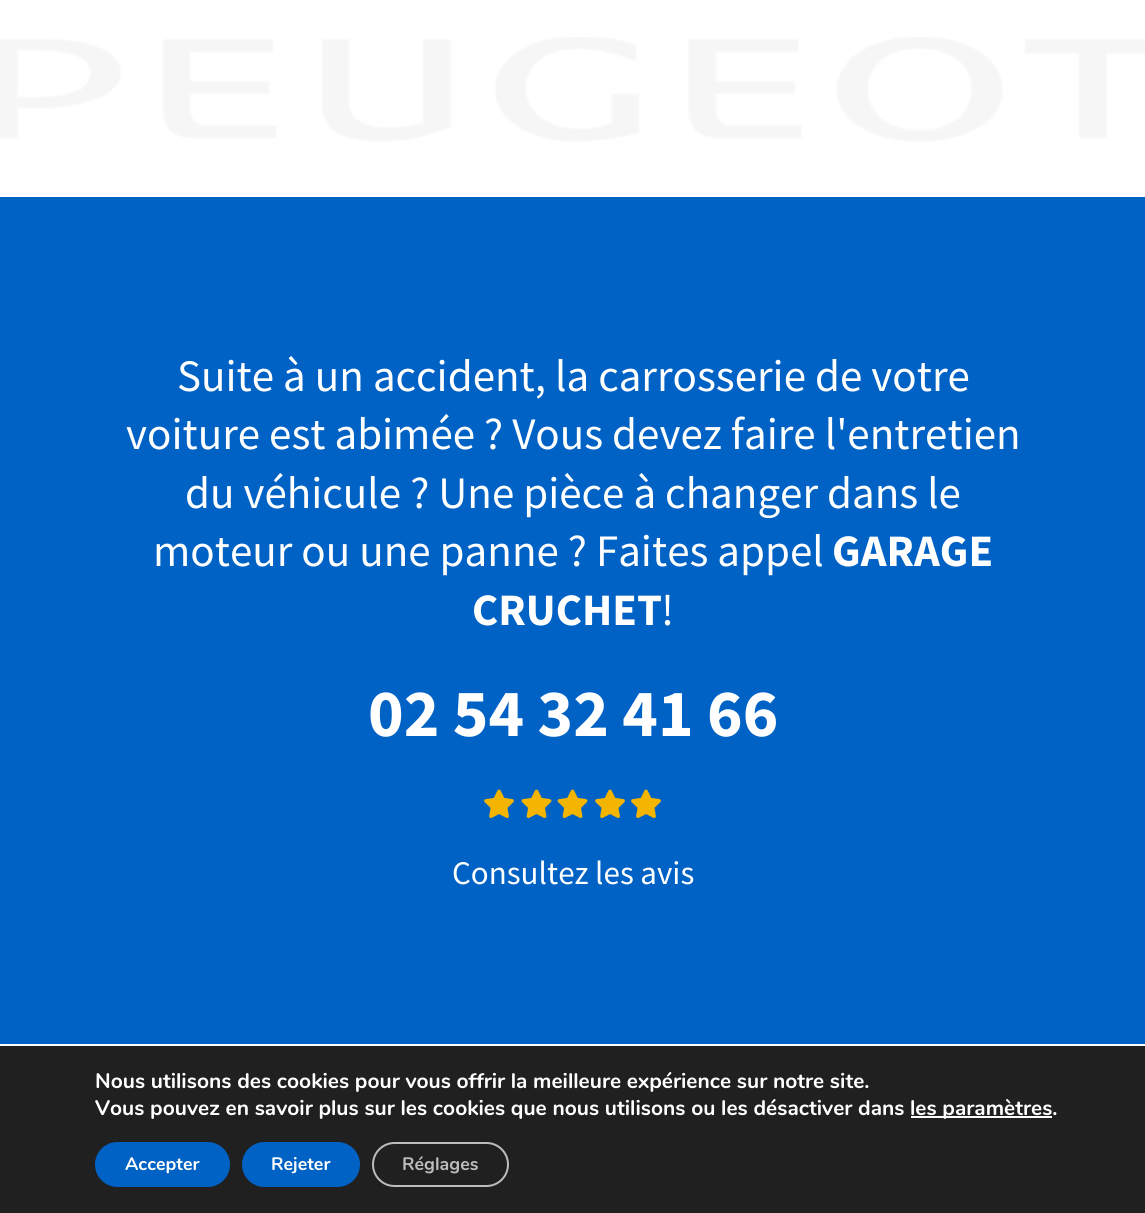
#include <cairo.h>
#include <math.h>
#include <stddef.h>


static void set_color(cairo_t *cr, unsigned color) {
    cairo_set_source_rgb(cr, (color >> 16) / 255.0, (color >> 8 & 255) / 255.0, (color & 255) / 255.0);
}

static void draw_text(cairo_t *cr, double x, double y, const char *s, const char *family, double size, int italic, int bold, unsigned color) {
    cairo_select_font_face(cr, family, italic ? CAIRO_FONT_SLANT_ITALIC : CAIRO_FONT_SLANT_NORMAL,
        bold ? CAIRO_FONT_WEIGHT_BOLD : CAIRO_FONT_WEIGHT_NORMAL);
    cairo_set_font_size(cr, size);
    set_color(cr, color);
    cairo_move_to(cr, x, y);
    cairo_show_text(cr, s);
}

static void fill_rect(cairo_t *cr, double x, double y, double w, double h, unsigned color) {
    set_color(cr, color);
    cairo_rectangle(cr, x, y, w, h);
    cairo_fill(cr);
}

static void rounded_rect(cairo_t *cr, double x, double y, double w, double h, double r) {
    cairo_new_sub_path(cr);
    cairo_arc(cr, x + w - r, y + h - r, r, 0, M_PI / 2);
    cairo_arc(cr, x + r, y + h - r, r, M_PI / 2, M_PI);
    cairo_arc(cr, x + r, y + r, r, M_PI, 1.5 * M_PI);
    cairo_arc(cr, x + w - r, y + r, r, 1.5 * M_PI, 2 * M_PI);
    cairo_close_path(cr);
}

static void draw_image(cairo_t *cr, const char *path, double x, double y, double w, double h) {
    cairo_surface_t *image = cairo_image_surface_create_from_png(path);
    cairo_save(cr);
    cairo_set_source_surface(cr, image, x, y);
    cairo_rectangle(cr, x, y, w, h);
    cairo_fill(cr);
    cairo_restore(cr);
    cairo_surface_destroy(image);
}

int main(void) {
    cairo_surface_t *surface = cairo_image_surface_create(CAIRO_FORMAT_RGB24, 1145, 1213);
    cairo_t *cr = cairo_create(surface);
    cairo_font_options_t *options = cairo_font_options_create();
    cairo_font_options_set_hint_metrics(options, CAIRO_HINT_METRICS_OFF);
    cairo_font_options_set_hint_style(options, CAIRO_HINT_STYLE_NONE);
    cairo_set_font_options(cr, options);
    cairo_set_miter_limit(cr, 4);
    set_color(cr, 0xFFFFFF);
    cairo_paint(cr);
    draw_image(cr, "assets/img1.png", 0, 37, 1145, 105);
    fill_rect(cr, 0, 197, 1145, 843, 0x0062C5);
    draw_text(cr, 177, 391, "Suite à un accident, la carrosserie de votre", "Source Sans Pro", 45, 0, 0, 0xFFFFFF);
    draw_text(cr, 126, 449, "voiture est abimée ? Vous devez faire l'entretien", "Source Sans Pro", 45, 0, 0, 0xFFFFFF);
    draw_text(cr, 185, 508, "du véhicule ? Une pièce à changer dans le", "Source Sans Pro", 45, 0, 0, 0xFFFFFF);
    draw_text(cr, 153, 566, "moteur ou une panne ? Faites appel", "Source Sans Pro", 45, 0, 0, 0xFFFFFF);
    draw_text(cr, 832, 566, "GARAGE", "Source Sans Pro", 45, 0, 1, 0xFFFFFF);
    draw_text(cr, 472, 625, "CRUCHET", "Source Sans Pro", 45, 0, 1, 0xFFFFFF);
    draw_text(cr, 661, 625, "!", "Source Sans Pro", 45, 0, 0, 0xFFFFFF);
    draw_text(cr, 368, 736, "02 54 32 41 66", "Source Sans Pro", 67.5, 0, 1, 0xFFFFFF);
    draw_image(cr, "assets/img2.png", 484, 789, 30, 29);
    draw_image(cr, "assets/img3.png", 521, 789, 31, 29);
    draw_image(cr, "assets/img3.png", 557, 789, 31, 29);
    draw_image(cr, "assets/img2.png", 595, 789, 30, 29);
    draw_image(cr, "assets/img2.png", 631, 789, 30, 29);
    draw_text(cr, 452, 884, "Consultez les avis", "Source Sans Pro", 33, 0, 0, 0xFFFFFF);
    draw_image(cr, "assets/img4.png", 0, 1040, 1145, 4);
    fill_rect(cr, 0, 1046, 1145, 167, 0x202020);
    draw_text(cr, 95, 1088, "Nous utilisons des cookies pour vous offrir la meilleure expérience sur notre site.", "Nunito", 21, 0, 1, 0xFFFFFF);
    draw_text(cr, 95, 1115, "Vous pouvez en savoir plus sur les cookies que nous utilisons ou les désactiver dans", "Nunito", 21, 0, 1, 0xFFFFFF);
    fill_rect(cr, 911, 1116, 141, 2, 0xFFFFFF);
    draw_text(cr, 910, 1115, "les paramètres.", "Nunito", 21, 0, 1, 0xFFFFFF);
    set_color(cr, 0x0062C5);
    rounded_rect(cr, 95, 1142, 135, 45, 22.5);
    cairo_fill(cr);
    draw_text(cr, 125, 1170, "Accepter", "Nunito", 18, 0, 1, 0xFFFFFF);
    set_color(cr, 0x0062C5);
    rounded_rect(cr, 242, 1142, 118, 45, 22.5);
    cairo_fill(cr);
    draw_text(cr, 271, 1170, "Rejeter", "Nunito", 18, 0, 1, 0xFFFFFF);
    rounded_rect(cr, 373, 1143, 135, 43, 21.5);
    set_color(cr, 0xBCBCBC);
    cairo_stroke(cr);
    draw_text(cr, 402, 1170, "Réglages", "Nunito", 18, 0, 1, 0xBCBCBC);
    cairo_surface_write_to_png(surface, "output.png");
    cairo_font_options_destroy(options);
    cairo_destroy(cr);
    cairo_surface_destroy(surface);
    return 0;
}
